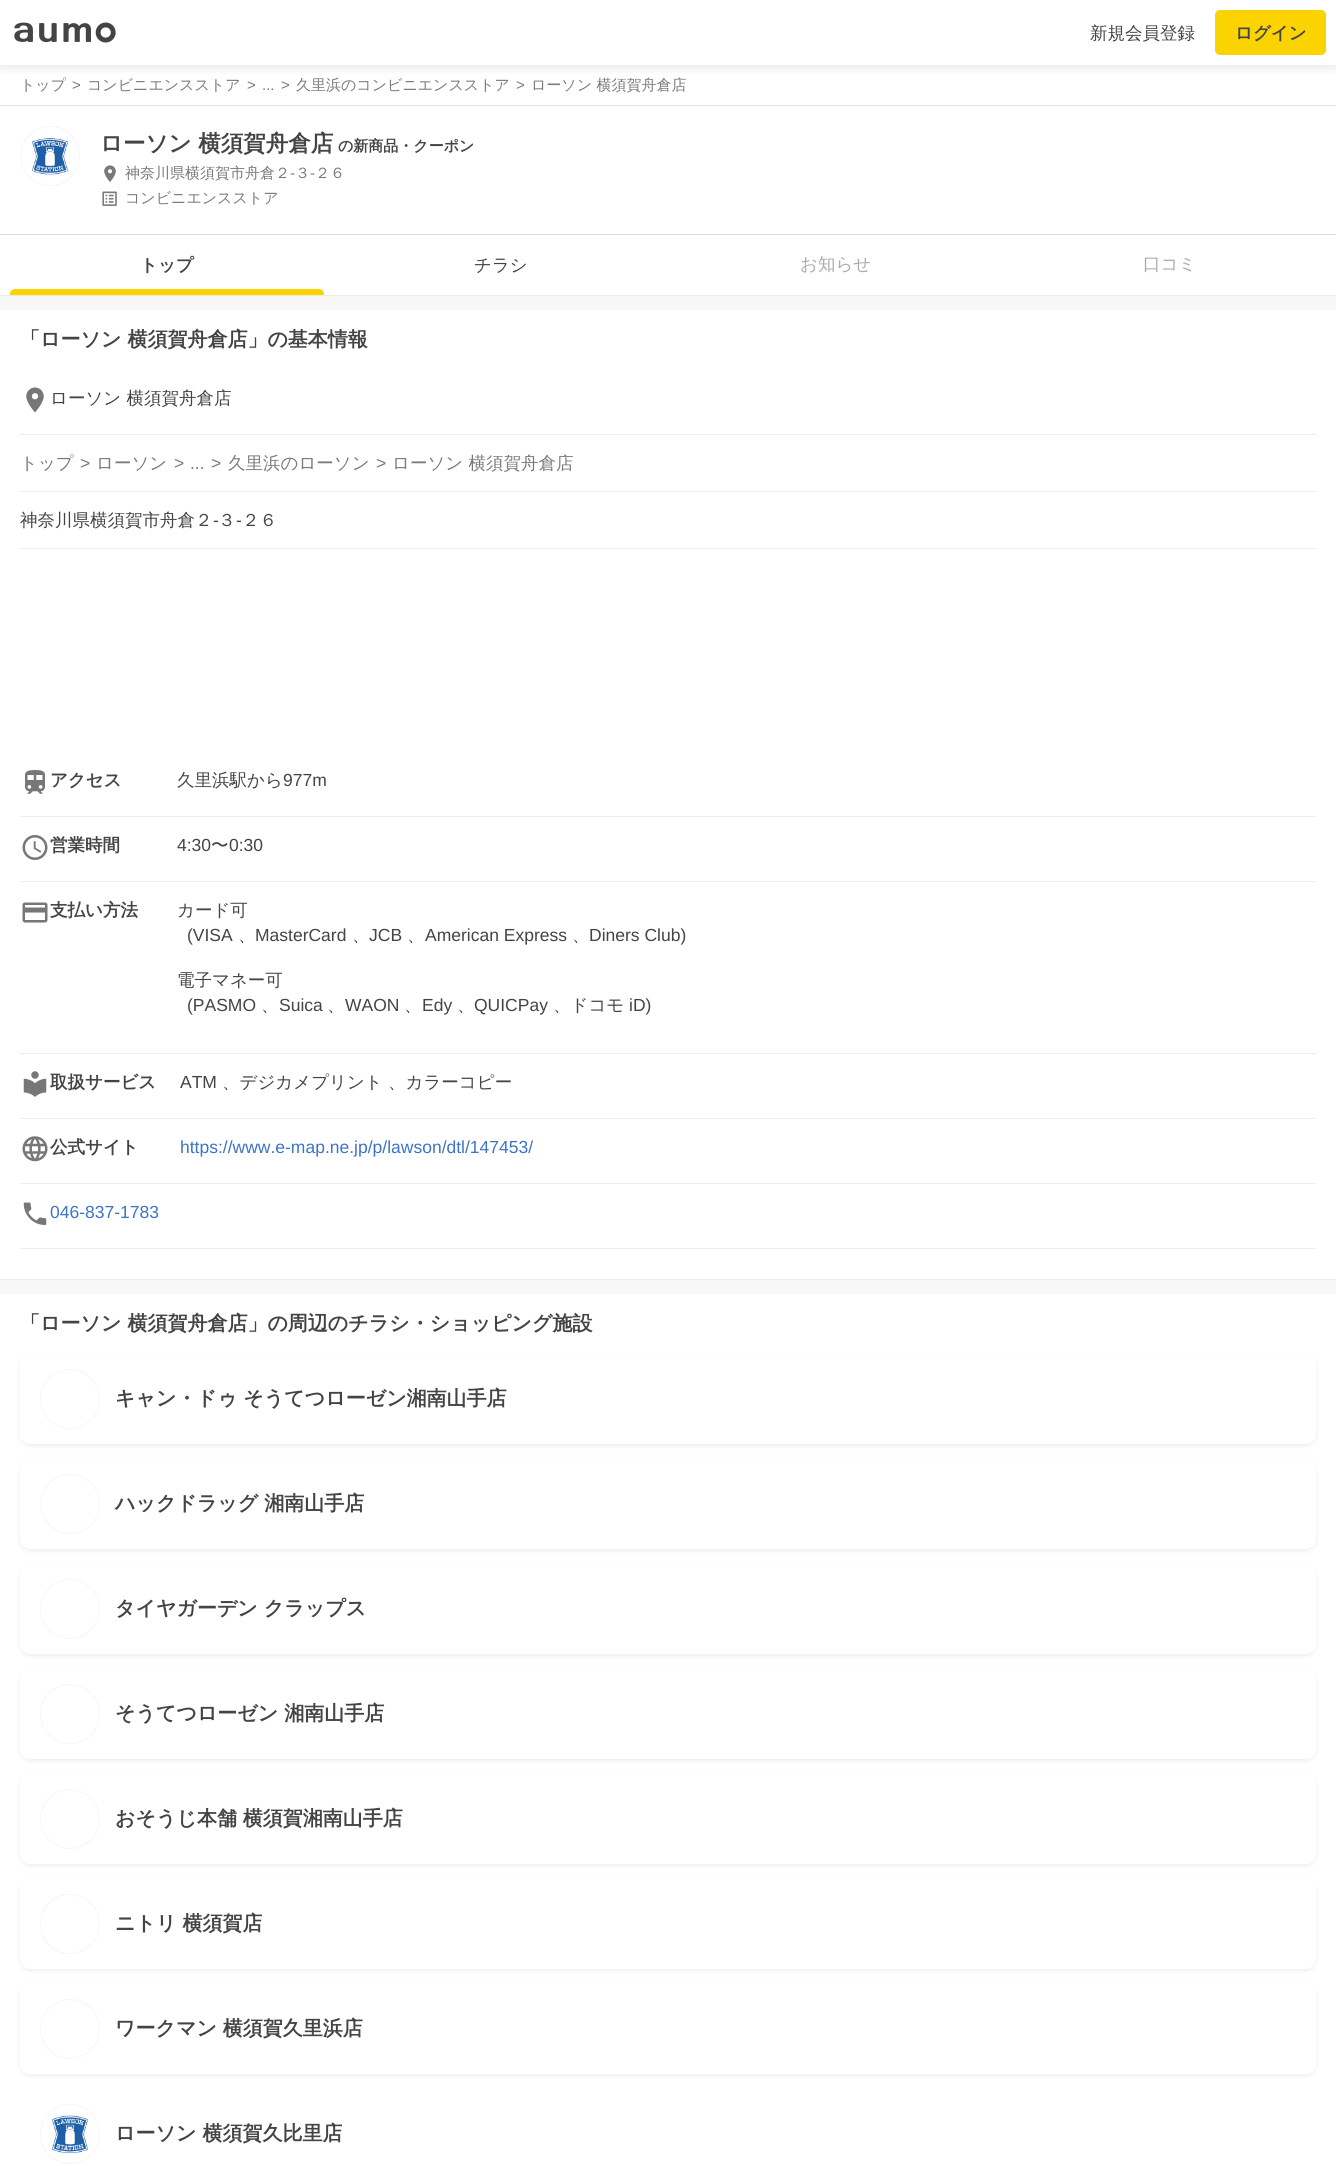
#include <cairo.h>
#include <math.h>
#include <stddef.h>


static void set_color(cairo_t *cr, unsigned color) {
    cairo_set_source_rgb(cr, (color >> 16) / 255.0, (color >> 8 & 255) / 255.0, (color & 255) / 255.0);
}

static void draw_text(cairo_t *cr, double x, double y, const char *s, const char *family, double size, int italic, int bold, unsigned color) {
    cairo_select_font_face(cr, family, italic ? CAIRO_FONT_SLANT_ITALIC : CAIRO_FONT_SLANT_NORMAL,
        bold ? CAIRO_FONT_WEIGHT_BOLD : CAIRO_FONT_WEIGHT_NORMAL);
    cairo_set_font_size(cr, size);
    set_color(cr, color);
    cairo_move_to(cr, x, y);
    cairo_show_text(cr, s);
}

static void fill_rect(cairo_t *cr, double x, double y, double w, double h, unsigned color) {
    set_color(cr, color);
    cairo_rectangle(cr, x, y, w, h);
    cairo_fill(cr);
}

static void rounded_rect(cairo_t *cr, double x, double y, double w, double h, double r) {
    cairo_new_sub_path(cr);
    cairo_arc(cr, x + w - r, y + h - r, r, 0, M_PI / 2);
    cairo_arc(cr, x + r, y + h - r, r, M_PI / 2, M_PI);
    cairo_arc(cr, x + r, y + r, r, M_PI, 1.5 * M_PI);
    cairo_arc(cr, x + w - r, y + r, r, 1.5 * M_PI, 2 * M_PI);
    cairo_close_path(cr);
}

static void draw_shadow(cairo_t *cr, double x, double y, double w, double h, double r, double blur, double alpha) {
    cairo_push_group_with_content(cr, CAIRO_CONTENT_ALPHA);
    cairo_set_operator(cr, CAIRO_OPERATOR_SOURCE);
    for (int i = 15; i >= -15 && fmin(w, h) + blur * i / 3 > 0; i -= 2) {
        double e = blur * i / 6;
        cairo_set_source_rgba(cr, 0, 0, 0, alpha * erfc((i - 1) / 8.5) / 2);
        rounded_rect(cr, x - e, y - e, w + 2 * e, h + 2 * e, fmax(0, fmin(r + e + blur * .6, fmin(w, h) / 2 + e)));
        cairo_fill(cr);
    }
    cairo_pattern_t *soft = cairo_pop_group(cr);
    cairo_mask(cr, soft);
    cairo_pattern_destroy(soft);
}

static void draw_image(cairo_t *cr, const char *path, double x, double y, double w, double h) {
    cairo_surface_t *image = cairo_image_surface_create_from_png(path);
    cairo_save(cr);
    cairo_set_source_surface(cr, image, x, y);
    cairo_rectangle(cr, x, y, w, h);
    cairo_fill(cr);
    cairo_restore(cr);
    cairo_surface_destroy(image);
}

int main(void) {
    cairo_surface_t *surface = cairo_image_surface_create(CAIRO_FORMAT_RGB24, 1336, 2166);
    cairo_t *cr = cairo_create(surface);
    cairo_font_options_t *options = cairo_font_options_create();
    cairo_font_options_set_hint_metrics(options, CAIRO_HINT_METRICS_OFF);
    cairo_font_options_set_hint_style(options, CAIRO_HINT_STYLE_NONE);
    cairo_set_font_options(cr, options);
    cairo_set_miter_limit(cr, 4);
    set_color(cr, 0xF7F7F7);
    cairo_paint(cr);
    fill_rect(cr, 0, 65, 1336, 40, 0xFFFFFF);
    set_color(cr, 0x000000);
    draw_shadow(cr, 0, 4, 1336, 65, 0, 4, 0.08);
    fill_rect(cr, 0, 0, 1336, 65, 0xFFFFFF);
    draw_image(cr, "assets/img1.png", 14, 22, 102, 21);
    draw_text(cr, 1090, 39, "新規会員登録", "WenQuanYi Zen Hei Medium", 17.5, 0, 0, 0x444444);
    set_color(cr, 0xFAD300);
    rounded_rect(cr, 1215, 10, 111, 45, 5);
    cairo_fill(cr);
    draw_text(cr, 1235, 39, "ログイン", "WenQuanYi Zen Hei", 17.5, 0, 1, 0x444444);
    fill_rect(cr, 0, 105, 1336, 1, 0xE4E4E4);
    draw_text(cr, 20, 90, "トップ", "WenQuanYi Zen Hei Medium", 15, 0, 0, 0x7A7A7A);
    draw_text(cr, 72, 90, ">", "Liberation Sans", 15, 0, 0, 0x7A7A7A);
    draw_text(cr, 87, 90, "コンビニエンスストア", "WenQuanYi Zen Hei Medium", 15, 0, 0, 0x7A7A7A);
    draw_text(cr, 247, 90, ">", "Liberation Sans", 15, 0, 0, 0x7A7A7A);
    draw_text(cr, 262, 90, "...", "Liberation Sans", 15, 0, 0, 0x7A7A7A);
    draw_text(cr, 281, 90, ">", "Liberation Sans", 15, 0, 0, 0x7A7A7A);
    draw_text(cr, 296, 90, "久里浜のコンビニエンスストア", "WenQuanYi Zen Hei Medium", 15, 0, 0, 0x7A7A7A);
    draw_text(cr, 516, 90, ">", "Liberation Sans", 15, 0, 0, 0x7A7A7A);
    draw_text(cr, 531, 90, "ローソン 横須賀舟倉店", "WenQuanYi Zen Hei Medium", 15, 0, 0, 0x7A7A7A);
    fill_rect(cr, 0, 234, 1336, 1, 0xDDDDDD);
    fill_rect(cr, 0, 106, 1336, 128, 0xFFFFFF);
    cairo_new_path(cr);
    cairo_arc(cr, 50, 156, 29.5, 0, 2 * M_PI);
    set_color(cr, 0xF6F6F6);
    cairo_set_line_width(cr, 1);
    cairo_stroke(cr);
    draw_image(cr, "assets/img2.png", 31, 138, 38, 37);
    draw_text(cr, 100, 151, "ローソン 横須賀舟倉店", "WenQuanYi Zen Hei", 22.5, 0, 1, 0x444444);
    draw_text(cr, 338, 151, "の新商品・クーポン", "WenQuanYi Zen Hei", 15, 0, 1, 0x444444);
    draw_image(cr, "assets/img3.png", 104, 165, 12, 17);
    draw_text(cr, 125, 178, "神奈川県横須賀市舟倉２", "WenQuanYi Zen Hei Medium", 15, 0, 0, 0x7A7A7A);
    draw_text(cr, 290, 178, "‐", "Liberation Sans", 15, 0, 0, 0x7A7A7A);
    draw_text(cr, 295, 178, "３", "WenQuanYi Zen Hei Medium", 15, 0, 0, 0x7A7A7A);
    draw_text(cr, 310, 178, "‐", "Liberation Sans", 15, 0, 0, 0x7A7A7A);
    draw_text(cr, 315, 178, "２６", "WenQuanYi Zen Hei Medium", 15, 0, 0, 0x7A7A7A);
    draw_image(cr, "assets/img4.png", 102, 191, 15, 15);
    draw_text(cr, 125, 203, "コンビニエンスストア", "WenQuanYi Zen Hei Medium", 15, 0, 0, 0x7A7A7A);
    set_color(cr, 0x000000);
    draw_shadow(cr, 0, 236, 1336, 60, 0, 0.5, 0.06);
    fill_rect(cr, 0, 235, 1336, 60, 0xFFFFFF);
    draw_text(cr, 140, 271, "トップ", "WenQuanYi Zen Hei", 17.5, 0, 1, 0x444444);
    cairo_save(cr);
    cairo_rectangle(cr, 0, 235, 1336, 60);
    cairo_clip(cr);
    set_color(cr, 0xFAD300);
    rounded_rect(cr, 10, 289, 314, 10, 5);
    cairo_fill(cr);
    cairo_restore(cr);
    draw_text(cr, 474, 271, "チラシ", "WenQuanYi Zen Hei Medium", 17.5, 0, 0, 0x444444);
    draw_text(cr, 800, 270, "お知らせ", "WenQuanYi Zen Hei Medium", 17.5, 0, 0, 0xABABAB);
    draw_text(cr, 1143, 270, "口コミ", "WenQuanYi Zen Hei Medium", 17.5, 0, 0, 0xABABAB);
    set_color(cr, 0x000000);
    draw_shadow(cr, 0, 311, 1336, 969, 0, 0.5, 0.06);
    fill_rect(cr, 0, 310, 1336, 969, 0xFFFFFF);
    draw_text(cr, 20, 346, "「ローソン 横須賀舟倉店」の基本情報", "WenQuanYi Zen Hei", 20, 0, 1, 0x444444);
    fill_rect(cr, 20, 434, 1296, 1, 0xEEEEEE);
    draw_image(cr, "assets/img5.png", 26, 387, 18, 26);
    draw_text(cr, 50, 404, "ローソン 横須賀舟倉店", "WenQuanYi Zen Hei Medium", 17.5, 0, 0, 0x444444);
    fill_rect(cr, 20, 491, 1296, 1, 0xEEEEEE);
    draw_text(cr, 20, 469, "トップ", "WenQuanYi Zen Hei Medium", 17.5, 0, 0, 0x7A7A7A);
    draw_text(cr, 80, 469, ">", "Liberation Sans", 17.5, 0, 0, 0x7A7A7A);
    draw_text(cr, 96, 469, "ローソン", "WenQuanYi Zen Hei Medium", 17.5, 0, 0, 0x7A7A7A);
    draw_text(cr, 174, 469, ">", "Liberation Sans", 17.5, 0, 0, 0x7A7A7A);
    draw_text(cr, 190, 469, "...", "Liberation Sans", 17.5, 0, 0, 0x7A7A7A);
    draw_text(cr, 211, 469, ">", "Liberation Sans", 17.5, 0, 0, 0x7A7A7A);
    draw_text(cr, 228, 469, "久里浜のローソン", "WenQuanYi Zen Hei Medium", 17.5, 0, 0, 0x7A7A7A);
    draw_text(cr, 376, 469, ">", "Liberation Sans", 17.5, 0, 0, 0x7A7A7A);
    draw_text(cr, 392, 469, "ローソン 横須賀舟倉店", "WenQuanYi Zen Hei Medium", 17.5, 0, 0, 0x7A7A7A);
    fill_rect(cr, 20, 548, 1296, 1, 0xEEEEEE);
    draw_text(cr, 20, 526, "神奈川県横須賀市舟倉２", "WenQuanYi Zen Hei Medium", 17.5, 0, 0, 0x444444);
    draw_text(cr, 213, 526, "‐", "Liberation Sans", 17.5, 0, 0, 0x444444);
    draw_text(cr, 218, 526, "３", "WenQuanYi Zen Hei Medium", 17.5, 0, 0, 0x444444);
    draw_text(cr, 236, 526, "‐", "Liberation Sans", 17.5, 0, 0, 0x444444);
    draw_text(cr, 242, 526, "２６", "WenQuanYi Zen Hei Medium", 17.5, 0, 0, 0x444444);
    fill_rect(cr, 20, 816, 1296, 1, 0xEEEEEE);
    draw_image(cr, "assets/img6.png", 25, 770, 20, 24);
    draw_text(cr, 50, 786, "アクセス", "WenQuanYi Zen Hei", 17.5, 0, 1, 0x444444);
    draw_text(cr, 177, 786, "久里浜駅から", "WenQuanYi Zen Hei Medium", 17.5, 0, 0, 0x444444);
    draw_text(cr, 283, 786, "977m", "Liberation Sans", 17.5, 0, 0, 0x444444);
    fill_rect(cr, 20, 881, 1296, 1, 0xEEEEEE);
    draw_image(cr, "assets/img7.png", 22, 835, 26, 25);
    draw_text(cr, 50, 851, "営業時間", "WenQuanYi Zen Hei", 17.5, 0, 1, 0x444444);
    draw_text(cr, 177, 851, "4:30", "Liberation Sans", 17.5, 0, 0, 0x444444);
    draw_text(cr, 211, 851, "〜", "WenQuanYi Zen Hei Medium", 17.5, 0, 0, 0x444444);
    draw_text(cr, 229, 851, "0:30", "Liberation Sans", 17.5, 0, 0, 0x444444);
    fill_rect(cr, 20, 1053, 1296, 1, 0xEEEEEE);
    draw_image(cr, "assets/img8.png", 22, 902, 26, 21);
    draw_text(cr, 50, 916, "支払い方法", "WenQuanYi Zen Hei", 17.5, 0, 1, 0x444444);
    draw_text(cr, 177, 916, "カード可", "WenQuanYi Zen Hei Medium", 17.5, 0, 0, 0x444444);
    draw_text(cr, 187, 941, "(VISA", "Liberation Sans", 17.5, 0, 0, 0x444444);
    draw_text(cr, 238, 941, "、", "WenQuanYi Zen Hei Medium", 17.5, 0, 0, 0x444444);
    draw_text(cr, 255, 941, "MasterCard", "Liberation Sans", 17.5, 0, 0, 0x444444);
    draw_text(cr, 352, 941, "、", "WenQuanYi Zen Hei Medium", 17.5, 0, 0, 0x444444);
    draw_text(cr, 369, 941, "JCB", "Liberation Sans", 17.5, 0, 0, 0x444444);
    draw_text(cr, 407, 941, "、", "WenQuanYi Zen Hei Medium", 17.5, 0, 0, 0x444444);
    draw_text(cr, 425, 941, "American Express", "Liberation Sans", 17.5, 0, 0, 0x444444);
    draw_text(cr, 572, 941, "、", "WenQuanYi Zen Hei Medium", 17.5, 0, 0, 0x444444);
    draw_text(cr, 589, 941, "Diners Club)", "Liberation Sans", 17.5, 0, 0, 0x444444);
    draw_text(cr, 177, 986, "電子マネー可", "WenQuanYi Zen Hei Medium", 17.5, 0, 0, 0x444444);
    draw_text(cr, 187, 1011, "(PASMO", "Liberation Sans", 17.5, 0, 0, 0x444444);
    draw_text(cr, 261, 1011, "、", "WenQuanYi Zen Hei Medium", 17.5, 0, 0, 0x444444);
    draw_text(cr, 279, 1011, "Suica", "Liberation Sans", 17.5, 0, 0, 0x444444);
    draw_text(cr, 327, 1011, "、", "WenQuanYi Zen Hei Medium", 17.5, 0, 0, 0x444444);
    draw_text(cr, 345, 1011, "WAON", "Liberation Sans", 17.5, 0, 0, 0x444444);
    draw_text(cr, 404, 1011, "、", "WenQuanYi Zen Hei Medium", 17.5, 0, 0, 0x444444);
    draw_text(cr, 422, 1011, "Edy", "Liberation Sans", 17.5, 0, 0, 0x444444);
    draw_text(cr, 457, 1011, "、", "WenQuanYi Zen Hei Medium", 17.5, 0, 0, 0x444444);
    draw_text(cr, 474, 1011, "QUICPay", "Liberation Sans", 17.5, 0, 0, 0x444444);
    draw_text(cr, 553, 1011, "、ドコモ", "WenQuanYi Zen Hei Medium", 17.5, 0, 0, 0x444444);
    draw_text(cr, 629, 1011, "iD)", "Liberation Sans", 17.5, 0, 0, 0x444444);
    fill_rect(cr, 20, 1118, 1296, 1, 0xEEEEEE);
    draw_image(cr, "assets/img9.png", 23, 1071, 24, 26);
    draw_text(cr, 50, 1088, "取扱サービス", "WenQuanYi Zen Hei", 17.5, 0, 1, 0x444444);
    draw_text(cr, 180, 1088, "ATM", "Liberation Sans", 17.5, 0, 0, 0x444444);
    draw_text(cr, 222, 1088, "、デジカメプリント 、カラーコピー", "WenQuanYi Zen Hei Medium", 17.5, 0, 0, 0x444444);
    fill_rect(cr, 20, 1183, 1296, 1, 0xEEEEEE);
    draw_image(cr, "assets/img10.png", 22, 1136, 26, 26);
    draw_text(cr, 50, 1153, "公式サイト", "WenQuanYi Zen Hei", 17.5, 0, 1, 0x444444);
    draw_text(cr, 180, 1153, "https://www.e-map.ne.jp/p/lawson/dtl/147453/", "Liberation Sans", 17.5, 0, 0, 0x3D74C8);
    fill_rect(cr, 20, 1248, 1296, 1, 0xEEEEEE);
    draw_image(cr, "assets/img11.png", 23, 1202, 24, 23);
    draw_text(cr, 50, 1218, "046-837-1783", "Liberation Sans", 17.5, 0, 0, 0x3D74C8);
    fill_rect(cr, 0, 1294, 1336, 872, 0xFFFFFF);
    draw_text(cr, 20, 1330, "「ローソン 横須賀舟倉店」の周辺のチラシ・ショッピング施設", "WenQuanYi Zen Hei", 20, 0, 1, 0x444444);
    set_color(cr, 0x000000);
    draw_shadow(cr, 20, 1356, 1296, 90, 10, 2.5, 0.07);
    set_color(cr, 0xFFFFFF);
    rounded_rect(cr, 20, 1354, 1296, 90, 10);
    cairo_fill(cr);
    cairo_arc(cr, 70, 1399, 29.5, 0, 2 * M_PI);
    set_color(cr, 0xF6F6F6);
    cairo_stroke(cr);
    draw_text(cr, 115, 1405, "キャン・ドゥ そうてつローゼン湘南山手店", "WenQuanYi Zen Hei", 20, 0, 1, 0x444444);
    set_color(cr, 0x000000);
    draw_shadow(cr, 20, 1461, 1296, 90, 10, 2.5, 0.07);
    set_color(cr, 0xFFFFFF);
    rounded_rect(cr, 20, 1459, 1296, 90, 10);
    cairo_fill(cr);
    cairo_arc(cr, 70, 1504, 29.5, 0, 2 * M_PI);
    set_color(cr, 0xF6F6F6);
    cairo_stroke(cr);
    draw_text(cr, 115, 1510, "ハックドラッグ 湘南山手店", "WenQuanYi Zen Hei", 20, 0, 1, 0x444444);
    set_color(cr, 0x000000);
    draw_shadow(cr, 20, 1566, 1296, 90, 10, 2.5, 0.07);
    set_color(cr, 0xFFFFFF);
    rounded_rect(cr, 20, 1564, 1296, 90, 10);
    cairo_fill(cr);
    cairo_arc(cr, 70, 1609, 29.5, 0, 2 * M_PI);
    set_color(cr, 0xF6F6F6);
    cairo_stroke(cr);
    draw_text(cr, 115, 1615, "タイヤガーデン クラップス", "WenQuanYi Zen Hei", 20, 0, 1, 0x444444);
    set_color(cr, 0x000000);
    draw_shadow(cr, 20, 1671, 1296, 90, 10, 2.5, 0.07);
    set_color(cr, 0xFFFFFF);
    rounded_rect(cr, 20, 1669, 1296, 90, 10);
    cairo_fill(cr);
    cairo_arc(cr, 70, 1714, 29.5, 0, 2 * M_PI);
    set_color(cr, 0xF6F6F6);
    cairo_stroke(cr);
    draw_text(cr, 115, 1720, "そうてつローゼン 湘南山手店", "WenQuanYi Zen Hei", 20, 0, 1, 0x444444);
    set_color(cr, 0x000000);
    draw_shadow(cr, 20, 1776, 1296, 90, 10, 2.5, 0.07);
    set_color(cr, 0xFFFFFF);
    rounded_rect(cr, 20, 1774, 1296, 90, 10);
    cairo_fill(cr);
    cairo_arc(cr, 70, 1819, 29.5, 0, 2 * M_PI);
    set_color(cr, 0xF6F6F6);
    cairo_stroke(cr);
    draw_text(cr, 115, 1825, "おそうじ本舗 横須賀湘南山手店", "WenQuanYi Zen Hei", 20, 0, 1, 0x444444);
    set_color(cr, 0x000000);
    draw_shadow(cr, 20, 1881, 1296, 90, 10, 2.5, 0.07);
    set_color(cr, 0xFFFFFF);
    rounded_rect(cr, 20, 1879, 1296, 90, 10);
    cairo_fill(cr);
    cairo_arc(cr, 70, 1924, 29.5, 0, 2 * M_PI);
    set_color(cr, 0xF6F6F6);
    cairo_stroke(cr);
    draw_text(cr, 115, 1930, "ニトリ 横須賀店", "WenQuanYi Zen Hei", 20, 0, 1, 0x444444);
    set_color(cr, 0x000000);
    draw_shadow(cr, 20, 1986, 1296, 90, 10, 2.5, 0.07);
    set_color(cr, 0xFFFFFF);
    rounded_rect(cr, 20, 1984, 1296, 90, 10);
    cairo_fill(cr);
    cairo_arc(cr, 70, 2029, 29.5, 0, 2 * M_PI);
    set_color(cr, 0xF6F6F6);
    cairo_stroke(cr);
    draw_text(cr, 115, 2035, "ワークマン 横須賀久里浜店", "WenQuanYi Zen Hei", 20, 0, 1, 0x444444);
    cairo_new_path(cr);
    cairo_arc(cr, 70, 2134, 29.5, 0, 2 * M_PI);
    set_color(cr, 0xF6F6F6);
    cairo_stroke(cr);
    draw_image(cr, "assets/img12.png", 51, 2115, 38, 39);
    draw_text(cr, 115, 2140, "ローソン 横須賀久比里店", "WenQuanYi Zen Hei", 20, 0, 1, 0x444444);
    cairo_surface_write_to_png(surface, "output.png");
    cairo_font_options_destroy(options);
    cairo_destroy(cr);
    cairo_surface_destroy(surface);
    return 0;
}
